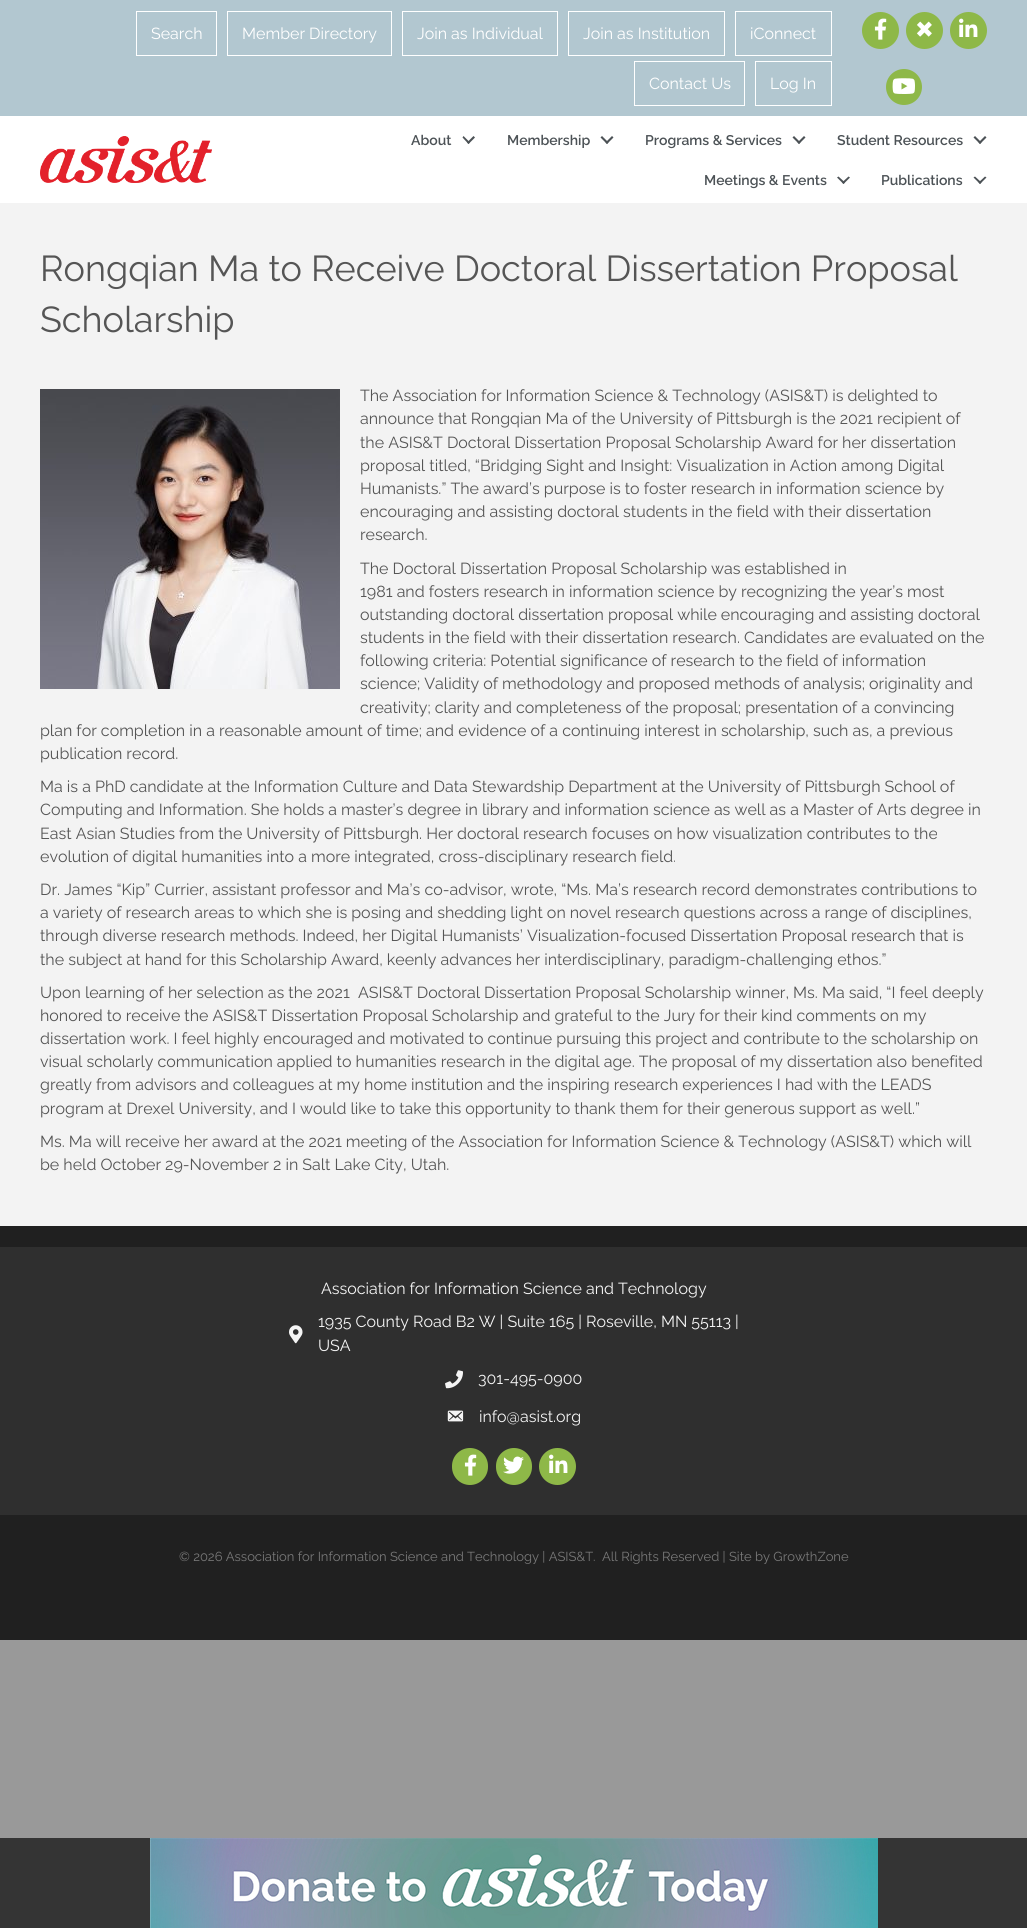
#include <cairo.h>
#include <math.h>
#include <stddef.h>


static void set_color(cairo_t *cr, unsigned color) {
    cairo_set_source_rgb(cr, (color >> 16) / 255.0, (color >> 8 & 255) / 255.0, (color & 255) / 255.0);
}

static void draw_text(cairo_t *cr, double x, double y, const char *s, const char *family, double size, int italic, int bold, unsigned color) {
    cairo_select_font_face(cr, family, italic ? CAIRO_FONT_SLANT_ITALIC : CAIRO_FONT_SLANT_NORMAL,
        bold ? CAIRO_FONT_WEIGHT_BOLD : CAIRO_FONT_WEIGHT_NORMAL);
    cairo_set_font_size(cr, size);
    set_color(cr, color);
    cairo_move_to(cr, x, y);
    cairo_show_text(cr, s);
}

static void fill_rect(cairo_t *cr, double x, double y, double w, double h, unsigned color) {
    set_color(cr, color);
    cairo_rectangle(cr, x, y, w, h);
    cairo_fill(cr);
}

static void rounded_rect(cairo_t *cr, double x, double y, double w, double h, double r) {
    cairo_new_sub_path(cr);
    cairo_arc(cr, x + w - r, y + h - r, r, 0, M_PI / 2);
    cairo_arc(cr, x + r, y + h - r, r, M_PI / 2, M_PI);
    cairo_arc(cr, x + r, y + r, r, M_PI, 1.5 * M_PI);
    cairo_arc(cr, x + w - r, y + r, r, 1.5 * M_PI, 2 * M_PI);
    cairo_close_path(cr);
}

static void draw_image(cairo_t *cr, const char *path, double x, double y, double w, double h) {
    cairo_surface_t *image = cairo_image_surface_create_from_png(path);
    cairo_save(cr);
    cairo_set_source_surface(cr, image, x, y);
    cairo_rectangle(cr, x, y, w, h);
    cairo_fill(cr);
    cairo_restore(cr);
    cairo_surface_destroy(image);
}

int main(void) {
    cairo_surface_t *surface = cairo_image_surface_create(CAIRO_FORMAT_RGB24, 1027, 1928);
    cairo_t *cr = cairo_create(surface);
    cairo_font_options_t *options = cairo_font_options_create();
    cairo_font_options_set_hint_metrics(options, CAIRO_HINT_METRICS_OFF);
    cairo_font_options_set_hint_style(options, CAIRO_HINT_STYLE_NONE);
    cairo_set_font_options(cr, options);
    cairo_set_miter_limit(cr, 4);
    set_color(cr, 0x999999);
    cairo_paint(cr);
    fill_rect(cr, 0, 0, 1027, 116, 0xB2C7D0);
    cairo_rectangle(cr, 136.5, 11.5, 80, 44);
    set_color(cr, 0xFFFFFF);
    cairo_set_line_width(cr, 1);
    cairo_stroke(cr);
    draw_text(cr, 151, 39, "Search", "Raleway", 16, 0, 0, 0xFFFFFF);
    cairo_rectangle(cr, 227.5, 11.5, 164, 44);
    cairo_stroke(cr);
    draw_text(cr, 242, 39, "Member Directory", "Raleway", 16, 0, 0, 0xFFFFFF);
    cairo_rectangle(cr, 402.5, 11.5, 155, 44);
    cairo_stroke(cr);
    draw_text(cr, 417, 39, "Join as Individual", "Raleway", 16, 0, 0, 0xFFFFFF);
    cairo_rectangle(cr, 568.5, 11.5, 156, 44);
    cairo_stroke(cr);
    draw_text(cr, 583, 39, "Join as Institution", "Raleway", 16, 0, 0, 0xFFFFFF);
    cairo_rectangle(cr, 735.5, 11.5, 96, 44);
    cairo_stroke(cr);
    draw_text(cr, 750, 39, "iConnect", "Raleway", 16, 0, 0, 0xFFFFFF);
    cairo_rectangle(cr, 634.5, 61.5, 110, 44);
    cairo_stroke(cr);
    draw_text(cr, 649, 89, "Contact Us", "Raleway", 16, 0, 0, 0xFFFFFF);
    cairo_rectangle(cr, 755.5, 61.5, 76, 44);
    cairo_stroke(cr);
    draw_text(cr, 770, 89, "Log In", "Raleway", 16, 0, 0, 0xFFFFFF);
    set_color(cr, 0x8EB848);
    cairo_new_path(cr);
    cairo_arc(cr, 880.5, 30.5, 18.5, 0, 2 * M_PI);
    cairo_fill(cr);
    draw_image(cr, "assets/img1.png", 874, 18, 13, 22);
    cairo_arc(cr, 924.5, 30.5, 18.5, 0, 2 * M_PI);
    cairo_fill(cr);
    draw_image(cr, "assets/img2.png", 917, 21, 15, 16);
    cairo_arc(cr, 968.5, 30.5, 18.5, 0, 2 * M_PI);
    cairo_fill(cr);
    draw_image(cr, "assets/img3.png", 959, 18, 19, 19);
    cairo_arc(cr, 904, 87, 18, 0, 2 * M_PI);
    cairo_fill(cr);
    draw_image(cr, "assets/img4.png", 892, 78, 23, 16);
    fill_rect(cr, 0, 116, 1027, 87, 0xFFFFFF);
    draw_image(cr, "assets/img5.png", 40, 136, 172, 47);
    draw_text(cr, 411, 145, "About", "Raleway SemiBold", 14, 0, 0, 0x4C5256);
    cairo_new_path(cr);
    cairo_move_to(cr, 473.5, 136);
    cairo_line_to(cr, 475, 137.5);
    cairo_line_to(cr, 468.5, 144);
    cairo_line_to(cr, 467, 142.5);
    cairo_close_path(cr);
    cairo_fill(cr);
    cairo_new_path(cr);
    cairo_move_to(cr, 463.5, 136);
    cairo_line_to(cr, 470, 142.5);
    cairo_line_to(cr, 468.5, 144);
    cairo_line_to(cr, 462.5, 137.5);
    cairo_close_path(cr);
    cairo_fill(cr);
    draw_text(cr, 507, 145, "Membership", "Raleway SemiBold", 14, 0, 0, 0x4C5256);
    cairo_new_path(cr);
    cairo_move_to(cr, 612, 136);
    cairo_line_to(cr, 613.5, 137.5);
    cairo_line_to(cr, 607, 144);
    cairo_line_to(cr, 605.5, 142.5);
    cairo_close_path(cr);
    cairo_fill(cr);
    cairo_new_path(cr);
    cairo_move_to(cr, 602, 136);
    cairo_line_to(cr, 608.5, 142.5);
    cairo_line_to(cr, 607, 144);
    cairo_line_to(cr, 600.5, 137.5);
    cairo_close_path(cr);
    cairo_fill(cr);
    draw_text(cr, 645, 145, "Programs & Services", "Raleway SemiBold", 14, 0, 0, 0x4C5256);
    cairo_new_path(cr);
    cairo_move_to(cr, 804, 136);
    cairo_line_to(cr, 805.5, 137.5);
    cairo_line_to(cr, 799, 144);
    cairo_line_to(cr, 797.5, 142.5);
    cairo_close_path(cr);
    cairo_fill(cr);
    cairo_new_path(cr);
    cairo_move_to(cr, 794, 136);
    cairo_line_to(cr, 800.5, 142.5);
    cairo_line_to(cr, 799, 144);
    cairo_line_to(cr, 792.5, 137.5);
    cairo_close_path(cr);
    cairo_fill(cr);
    draw_text(cr, 837, 145, "Student Resources", "Raleway SemiBold", 14, 0, 0, 0x4C5256);
    cairo_new_path(cr);
    cairo_move_to(cr, 985, 136);
    cairo_line_to(cr, 986.5, 137.5);
    cairo_line_to(cr, 980, 144);
    cairo_line_to(cr, 978.5, 142.5);
    cairo_close_path(cr);
    cairo_fill(cr);
    cairo_new_path(cr);
    cairo_move_to(cr, 975, 136);
    cairo_line_to(cr, 981.5, 142.5);
    cairo_line_to(cr, 980, 144);
    cairo_line_to(cr, 973.5, 137.5);
    cairo_close_path(cr);
    cairo_fill(cr);
    draw_text(cr, 704, 185, "Meetings & Events", "Raleway SemiBold", 14, 0, 0, 0x4C5256);
    cairo_new_path(cr);
    cairo_move_to(cr, 848.5, 176.5);
    cairo_line_to(cr, 850, 177.5);
    cairo_line_to(cr, 843.5, 184);
    cairo_line_to(cr, 842, 182.5);
    cairo_close_path(cr);
    cairo_fill(cr);
    cairo_new_path(cr);
    cairo_move_to(cr, 838.5, 176.5);
    cairo_line_to(cr, 845, 182.5);
    cairo_line_to(cr, 843.5, 184);
    cairo_line_to(cr, 837, 177.5);
    cairo_close_path(cr);
    cairo_fill(cr);
    draw_text(cr, 881, 185, "Publications", "Raleway SemiBold", 14, 0, 0, 0x4C5256);
    cairo_new_path(cr);
    cairo_move_to(cr, 985, 176.5);
    cairo_line_to(cr, 986.5, 177.5);
    cairo_line_to(cr, 980, 184);
    cairo_line_to(cr, 978.5, 182.5);
    cairo_close_path(cr);
    cairo_fill(cr);
    cairo_new_path(cr);
    cairo_move_to(cr, 975, 176.5);
    cairo_line_to(cr, 981.5, 182.5);
    cairo_line_to(cr, 980, 184);
    cairo_line_to(cr, 973.5, 177.5);
    cairo_close_path(cr);
    cairo_fill(cr);
    fill_rect(cr, 0, 203, 1027, 1023, 0xF3F3F3);
    draw_text(cr, 40, 281, "Rongqian Ma to Receive Doctoral Dissertation Proposal", "Raleway", 36, 0, 0, 0x555555);
    draw_text(cr, 40, 332, "Scholarship", "Raleway", 36, 0, 0, 0x555555);
    draw_image(cr, "assets/img6.png", 40, 389, 300, 300);
    draw_text(cr, 360, 401, "The Association for Information Science & Technology (ASIS&T) is delighted to", "Raleway", 16, 0, 0, 0x555555);
    draw_text(cr, 360, 424, "announce that Rongqian Ma of the University of Pittsburgh is the 2021 recipient of", "Raleway", 16, 0, 0, 0x555555);
    draw_text(cr, 360, 448, "the ASIS&T Doctoral Dissertation Proposal Scholarship Award for her dissertation", "Raleway", 16, 0, 0, 0x555555);
    draw_text(cr, 360, 471, "proposal titled, “Bridging Sight and Insight: Visualization in Action among Digital", "Raleway", 16, 0, 0, 0x555555);
    draw_text(cr, 360, 494, "Humanists.” The award’s purpose is to foster research in information science by", "Raleway", 16, 0, 0, 0x555555);
    draw_text(cr, 360, 517, "encouraging and assisting doctoral students in the field with their dissertation", "Raleway", 16, 0, 0, 0x555555);
    draw_text(cr, 360, 540, "research.", "Raleway", 16, 0, 0, 0x555555);
    draw_text(cr, 360, 574, "The Doctoral Dissertation Proposal Scholarship was established in", "Raleway", 16, 0, 0, 0x555555);
    draw_text(cr, 360, 597, "1981 and fosters research in information science by recognizing the year’s most", "Raleway", 16, 0, 0, 0x555555);
    draw_text(cr, 360, 620, "outstanding doctoral dissertation proposal while encouraging and assisting doctoral", "Raleway", 16, 0, 0, 0x555555);
    draw_text(cr, 360, 643, "students in the field with their dissertation research. Candidates are evaluated on the", "Raleway", 16, 0, 0, 0x555555);
    draw_text(cr, 360, 666, "following criteria: Potential significance of research to the field of information", "Raleway", 16, 0, 0, 0x555555);
    draw_text(cr, 360, 689, "science; Validity of methodology and proposed methods of analysis; originality and", "Raleway", 16, 0, 0, 0x555555);
    draw_text(cr, 360, 713, "creativity; clarity and completeness of the proposal; presentation of a convincing", "Raleway", 16, 0, 0, 0x555555);
    draw_text(cr, 40, 736, "plan for completion in a reasonable amount of time; and evidence of a continuing interest in scholarship, such as, a previous", "Raleway", 16, 0, 0, 0x555555);
    draw_text(cr, 40, 759, "publication record.", "Raleway", 16, 0, 0, 0x555555);
    draw_text(cr, 40, 792, "Ma is a PhD candidate at the Information Culture and Data Stewardship Department at the University of Pittsburgh School of", "Raleway", 16, 0, 0, 0x555555);
    draw_text(cr, 40, 815, "Computing and Information. She holds a master’s degree in library and information science as well as a Master of Arts degree in", "Raleway", 16, 0, 0, 0x555555);
    draw_text(cr, 40, 839, "East Asian Studies from the University of Pittsburgh. Her doctoral research focuses on how visualization contributes to the", "Raleway", 16, 0, 0, 0x555555);
    draw_text(cr, 40, 862, "evolution of digital humanities into a more integrated, cross-disciplinary research field.", "Raleway", 16, 0, 0, 0x555555);
    draw_text(cr, 40, 895, "Dr. James “Kip” Currier, assistant professor and Ma’s co-advisor, wrote, “Ms. Ma’s research record demonstrates contributions to", "Raleway", 16, 0, 0, 0x555555);
    draw_text(cr, 40, 918, "a variety of research areas to which she is posing and shedding light on novel research questions across a range of disciplines,", "Raleway", 16, 0, 0, 0x555555);
    draw_text(cr, 40, 941, "through diverse research methods. Indeed, her Digital Humanists’ Visualization-focused Dissertation Proposal research that is", "Raleway", 16, 0, 0, 0x555555);
    draw_text(cr, 40, 965, "the subject at hand for this Scholarship Award, keenly advances her interdisciplinary, paradigm-challenging ethos.”", "Raleway", 16, 0, 0, 0x555555);
    draw_text(cr, 40, 998, "Upon learning of her selection as the 2021", "Raleway", 16, 0, 0, 0x555555);
    draw_text(cr, 358, 998, "ASIS&T Doctoral Dissertation Proposal Scholarship winner, Ms. Ma said, “I feel deeply", "Raleway", 16, 0, 0, 0x555555);
    draw_text(cr, 40, 1021, "honored to receive the ASIS&T Dissertation Proposal Scholarship and grateful to the Jury for their kind comments on my", "Raleway", 16, 0, 0, 0x555555);
    draw_text(cr, 40, 1044, "dissertation work. I feel highly encouraged and motivated to continue pursuing this project and contribute to the scholarship on", "Raleway", 16, 0, 0, 0x555555);
    draw_text(cr, 40, 1067, "visual scholarly communication applied to humanities research in the digital age. The proposal of my dissertation also benefited", "Raleway", 16, 0, 0, 0x555555);
    draw_text(cr, 40, 1090, "greatly from advisors and colleagues at my home institution and the inspiring research experiences I had with the LEADS", "Raleway", 16, 0, 0, 0x555555);
    draw_text(cr, 40, 1114, "program at Drexel University, and I would like to take this opportunity to thank them for their generous support as well.”", "Raleway", 16, 0, 0, 0x555555);
    draw_text(cr, 40, 1147, "Ms. Ma will receive her award at the 2021 meeting of the Association for Information Science & Technology (ASIS&T) which will", "Raleway", 16, 0, 0, 0x555555);
    draw_text(cr, 40, 1170, "be held October 29-November 2 in Salt Lake City, Utah.", "Raleway", 16, 0, 0, 0x555555);
    fill_rect(cr, 0, 1226, 1027, 21, 0x202020);
    fill_rect(cr, 0, 1247, 1027, 268, 0x2F2F2F);
    draw_text(cr, 321, 1294, "Association for Information Science and Technology", "Raleway", 16, 0, 0, 0xF5F5F5);
    draw_image(cr, "assets/img7.png", 289, 1325, 14, 19);
    draw_text(cr, 318, 1327, "1935 County Road B2 W | Suite 165 | Roseville, MN 55113 |", "Raleway", 16, 0, 0, 0xF5F5F5);
    draw_text(cr, 318, 1351, "USA", "Raleway", 16, 0, 0, 0xF5F5F5);
    draw_image(cr, "assets/img8.png", 445, 1370, 18, 19);
    draw_text(cr, 478, 1384, "301-495-0900", "Raleway", 16, 0, 0, 0xF5F5F5);
    draw_image(cr, "assets/img9.png", 447, 1410, 17, 12);
    draw_text(cr, 479, 1422, "info@asist.org", "Raleway", 16, 0, 0, 0xF5F5F5);
    set_color(cr, 0x8EB848);
    rounded_rect(cr, 452, 1448, 36, 37, 18);
    cairo_fill(cr);
    draw_image(cr, "assets/img1.png", 464, 1454, 13, 22);
    rounded_rect(cr, 496, 1448, 36, 37, 18);
    cairo_fill(cr);
    draw_image(cr, "assets/img10.png", 503, 1456, 21, 18);
    cairo_arc(cr, 557.5, 1466.5, 18.5, 0, 2 * M_PI);
    cairo_fill(cr);
    draw_image(cr, "assets/img3.png", 549, 1454, 19, 19);
    fill_rect(cr, 0, 1515, 1027, 125, 0x202020);
    draw_text(cr, 179, 1561, "© 2026 Association for Information Science and Technology | ASIS&T.", "Raleway", 13, 0, 0, 0x797979);
    draw_text(cr, 602, 1561, "All Rights Reserved | Site by GrowthZone", "Raleway", 13, 0, 0, 0x797979);
    fill_rect(cr, 0, 1838, 1027, 90, 0x343434);
    draw_image(cr, "assets/img11.png", 150, 1838, 728, 90);
    cairo_surface_write_to_png(surface, "output.png");
    cairo_font_options_destroy(options);
    cairo_destroy(cr);
    cairo_surface_destroy(surface);
    return 0;
}
